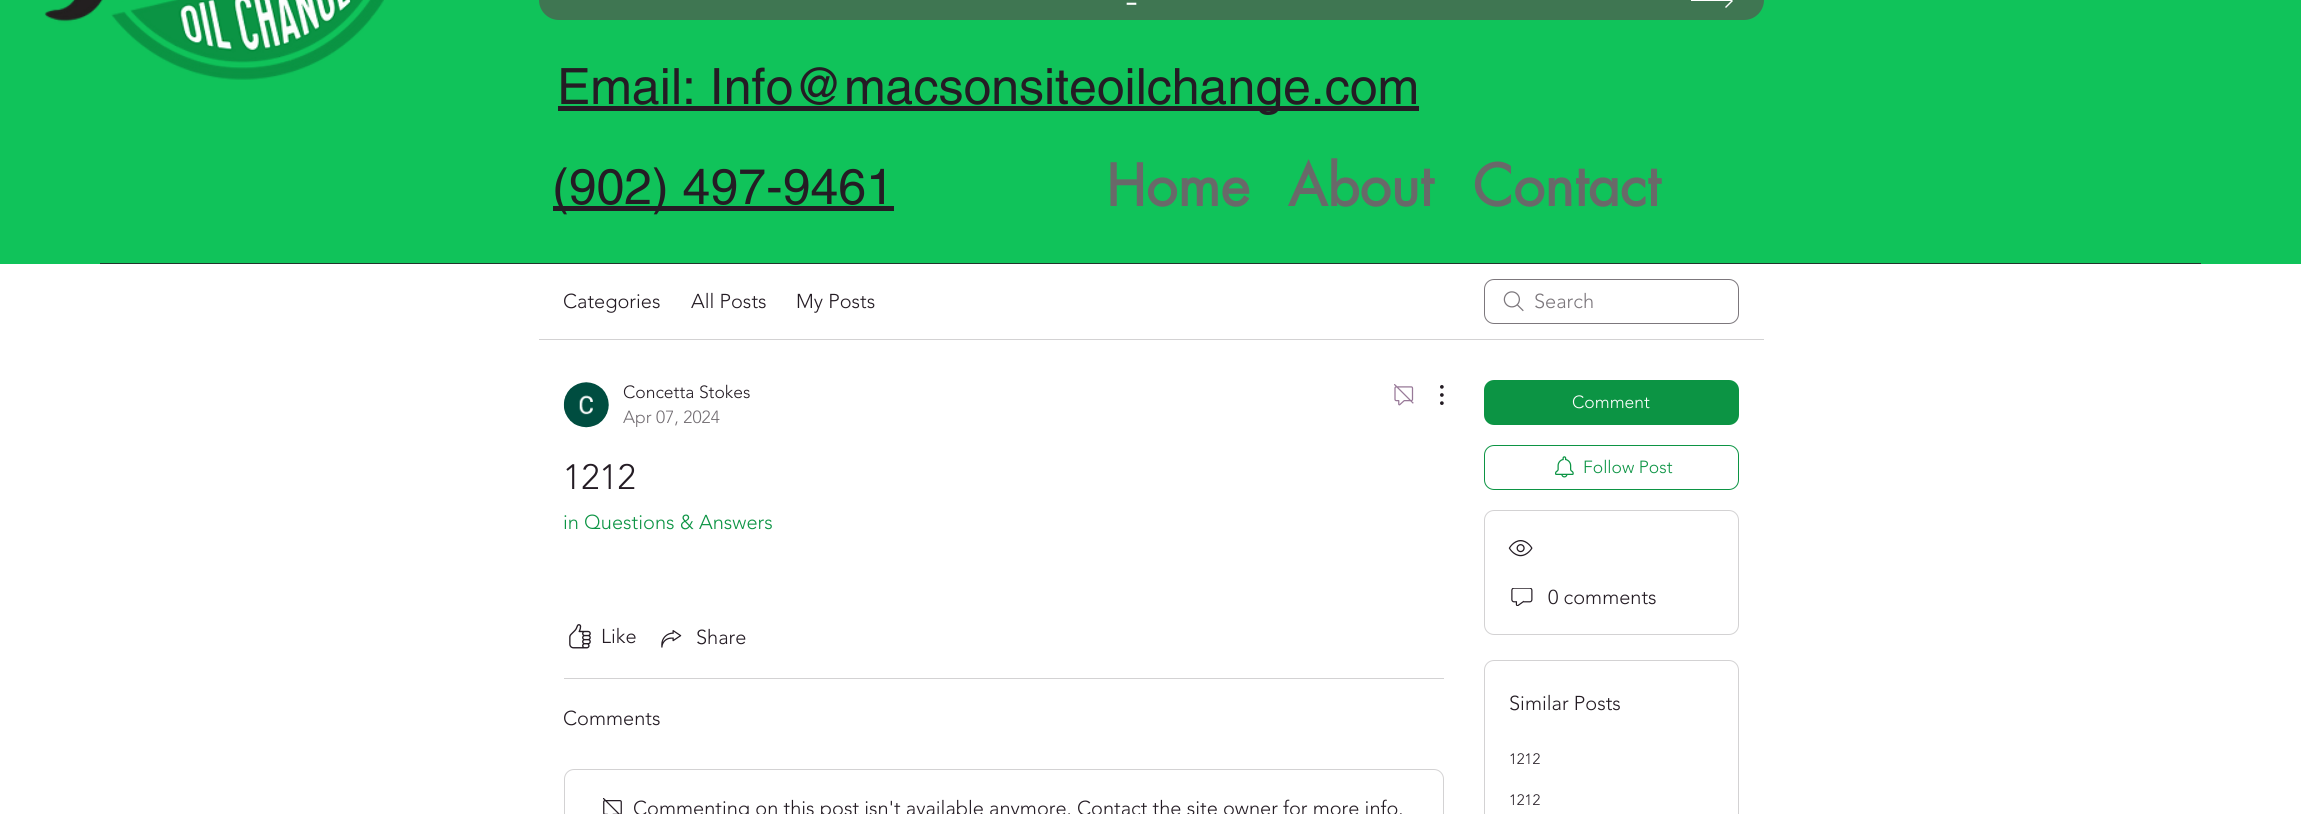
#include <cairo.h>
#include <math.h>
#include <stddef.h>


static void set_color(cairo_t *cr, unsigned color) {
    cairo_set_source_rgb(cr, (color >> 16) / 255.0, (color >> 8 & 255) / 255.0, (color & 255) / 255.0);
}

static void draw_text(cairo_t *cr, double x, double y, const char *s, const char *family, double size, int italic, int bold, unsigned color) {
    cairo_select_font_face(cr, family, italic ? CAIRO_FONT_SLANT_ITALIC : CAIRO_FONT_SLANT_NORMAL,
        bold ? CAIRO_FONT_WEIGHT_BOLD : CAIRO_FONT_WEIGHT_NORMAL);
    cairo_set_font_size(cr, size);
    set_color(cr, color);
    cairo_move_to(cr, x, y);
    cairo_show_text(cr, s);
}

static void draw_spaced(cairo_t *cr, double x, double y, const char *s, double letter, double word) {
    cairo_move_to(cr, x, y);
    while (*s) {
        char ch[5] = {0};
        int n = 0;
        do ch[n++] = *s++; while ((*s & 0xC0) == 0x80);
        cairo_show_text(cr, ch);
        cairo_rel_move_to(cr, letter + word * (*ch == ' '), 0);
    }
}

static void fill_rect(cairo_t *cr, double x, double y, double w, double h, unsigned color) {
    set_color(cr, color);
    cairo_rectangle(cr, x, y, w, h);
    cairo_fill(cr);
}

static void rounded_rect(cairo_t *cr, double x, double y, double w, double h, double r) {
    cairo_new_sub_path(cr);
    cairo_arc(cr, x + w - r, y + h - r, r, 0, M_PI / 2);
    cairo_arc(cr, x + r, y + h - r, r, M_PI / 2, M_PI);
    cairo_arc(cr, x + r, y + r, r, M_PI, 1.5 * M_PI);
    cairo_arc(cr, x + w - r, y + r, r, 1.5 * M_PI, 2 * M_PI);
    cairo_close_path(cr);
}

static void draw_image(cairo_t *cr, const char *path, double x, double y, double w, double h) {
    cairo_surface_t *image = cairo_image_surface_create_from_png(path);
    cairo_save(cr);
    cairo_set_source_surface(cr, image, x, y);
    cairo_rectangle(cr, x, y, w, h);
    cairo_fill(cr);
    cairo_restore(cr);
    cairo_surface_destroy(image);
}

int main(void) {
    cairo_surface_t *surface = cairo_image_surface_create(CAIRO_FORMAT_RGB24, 2301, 814);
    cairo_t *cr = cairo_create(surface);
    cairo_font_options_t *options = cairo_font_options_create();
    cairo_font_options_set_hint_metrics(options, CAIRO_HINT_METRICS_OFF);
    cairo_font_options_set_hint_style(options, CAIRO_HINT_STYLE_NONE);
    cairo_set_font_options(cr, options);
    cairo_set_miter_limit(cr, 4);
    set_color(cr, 0xFFFFFF);
    cairo_paint(cr);
    fill_rect(cr, 0, 0, 2301, 264, 0x10C35A);
    draw_image(cr, "assets/img1.png", 44, 0, 340, 80);
    set_color(cr, 0x3F7652);
    rounded_rect(cr, 539, -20, 1225, 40, 20);
    cairo_fill(cr);
    cairo_select_font_face(cr, "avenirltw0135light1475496 Light", CAIRO_FONT_SLANT_NORMAL, CAIRO_FONT_WEIGHT_NORMAL);
    cairo_set_font_size(cr, 39);
    set_color(cr, 0xFFFFFF);
    draw_spaced(cr, 1125, 13, "-", 10, 0);
    cairo_new_path(cr);
    cairo_move_to(cr, 1726, -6);
    cairo_line_to(cr, 1725, -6);
    cairo_line_to(cr, 1731, 0);
    cairo_line_to(cr, 1691, 0);
    cairo_line_to(cr, 1691, 1);
    cairo_line_to(cr, 1731, 1);
    cairo_line_to(cr, 1725, 7);
    cairo_line_to(cr, 1726, 8);
    cairo_line_to(cr, 1733, 1);
    cairo_close_path(cr);
    cairo_fill(cr);
    fill_rect(cr, 558, 106, 861, 5, 0x241C24);
    draw_text(cr, 557, 104, "Email: Info@macsonsiteoilchange.com", "helvetica", 50, 0, 0, 0x241C24);
    fill_rect(cr, 553, 206, 341, 5, 0x241C24);
    draw_text(cr, 552, 204, "(902) 497-9461", "helvetica", 50, 0, 0, 0x241C24);
    draw_text(cr, 1106, 206, "Home", "futura", 56, 0, 1, 0x696969);
    draw_text(cr, 1288, 206, "About", "futura", 56, 0, 1, 0x696969);
    draw_text(cr, 1473, 206, "Contact", "futura", 56, 0, 1, 0x696969);
    fill_rect(cr, 100, 263, 2101, 1, 0x21352C);
    fill_rect(cr, 539, 339, 1225, 1, 0xD3D2D3);
    draw_text(cr, 563, 308, "Categories", "avenirltw0135light1475496 Light", 20, 0, 0, 0x241C24);
    draw_text(cr, 691, 308, "All Posts", "avenirltw0135light1475496 Light", 20, 0, 0, 0x241C24);
    draw_text(cr, 796, 308, "My Posts", "avenirltw0135light1475496 Light", 20, 0, 0, 0x241C24);
    draw_image(cr, "assets/img2.png", 1503, 291, 21, 21);
    rounded_rect(cr, 1484.5, 279.5, 254, 44, 9.5);
    set_color(cr, 0x7C777C);
    cairo_set_line_width(cr, 1);
    cairo_stroke(cr);
    draw_text(cr, 1534, 308, "Search", "avenirltw0135light1475496 Light", 20, 0, 0, 0x7C777C);
    draw_image(cr, "assets/img3.png", 563, 382, 46, 46);
    draw_text(cr, 623, 398, "Concetta Stokes", "avenirltw0135light1475496 Light", 17.5, 0, 0, 0x241C24);
    draw_text(cr, 623, 423, "Apr 07, 2024", "avenirltw0135light1475496 Light", 17.5, 0, 0, 0x736E73);
    draw_image(cr, "assets/img4.png", 1394, 384, 20, 22);
    draw_image(cr, "assets/img5.png", 1440, 385, 4, 20);
    draw_text(cr, 563, 489, "1212", "avenirltw0135light1475496 Light", 35, 0, 0, 0x241C24);
    draw_text(cr, 563, 529, "in Questions & Answers", "avenirltw0135light1475496 Light", 20, 0, 0, 0x0C9444);
    draw_image(cr, "assets/img6.png", 569, 624, 22, 25);
    draw_text(cr, 601, 643, "Like", "avenirltw0135light1475496 Light", 20, 0, 0, 0x241C24);
    draw_image(cr, "assets/img7.png", 661, 630, 21, 18);
    draw_text(cr, 696, 644, "Share", "avenirltw0135light1475496 Light", 20, 0, 0, 0x241C24);
    fill_rect(cr, 564, 678, 880, 1, 0xD3D2D3);
    draw_text(cr, 563, 725, "Comments", "avenirltw0135light1475496 Light", 20, 0, 0, 0x241C24);
    rounded_rect(cr, 564.5, 769.5, 879, 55, 9.5);
    set_color(cr, 0xD3D2D3);
    cairo_stroke(cr);
    draw_image(cr, "assets/img8.png", 603, 798, 19, 16);
    draw_text(cr, 633, 815, "Commenting on this post isn't available anymore. Contact the site owner for more info.", "avenirltw0135light1475496 Light", 20, 0, 0, 0x241C24);
    set_color(cr, 0x0C9444);
    rounded_rect(cr, 1484, 380, 255, 45, 10);
    cairo_fill(cr);
    draw_text(cr, 1572, 408, "Comment", "avenirltw0135light1475496 Light", 17.5, 0, 0, 0xFFFFFF);
    rounded_rect(cr, 1484.5, 445.5, 254, 44, 9.5);
    set_color(cr, 0x0C9444);
    cairo_stroke(cr);
    draw_image(cr, "assets/img9.png", 1555, 456, 19, 22);
    draw_text(cr, 1583, 473, "Follow Post", "avenirltw0135light1475496 Light", 17.5, 0, 0, 0x0C9444);
    rounded_rect(cr, 1484.5, 510.5, 254, 124, 9.5);
    set_color(cr, 0xD3D2D3);
    cairo_stroke(cr);
    draw_image(cr, "assets/img10.png", 1508, 540, 25, 17);
    draw_image(cr, "assets/img11.png", 1511, 588, 22, 18);
    draw_text(cr, 1548, 604, "0 comments", "avenirltw0135light1475496 Light", 20, 0, 0, 0x241C24);
    rounded_rect(cr, 1484.5, 660.5, 254, 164, 9.5);
    set_color(cr, 0xD3D2D3);
    cairo_stroke(cr);
    draw_text(cr, 1509, 710, "Similar Posts", "avenirltw0135light1475496 Light", 20, 0, 0, 0x241C24);
    draw_text(cr, 1509, 764, "1212", "avenirltw0135light1475496 Light", 15, 0, 0, 0x241C24);
    draw_text(cr, 1509, 805, "1212", "avenirltw0135light1475496 Light", 15, 0, 0, 0x241C24);
    cairo_surface_write_to_png(surface, "output.png");
    cairo_font_options_destroy(options);
    cairo_destroy(cr);
    cairo_surface_destroy(surface);
    return 0;
}
